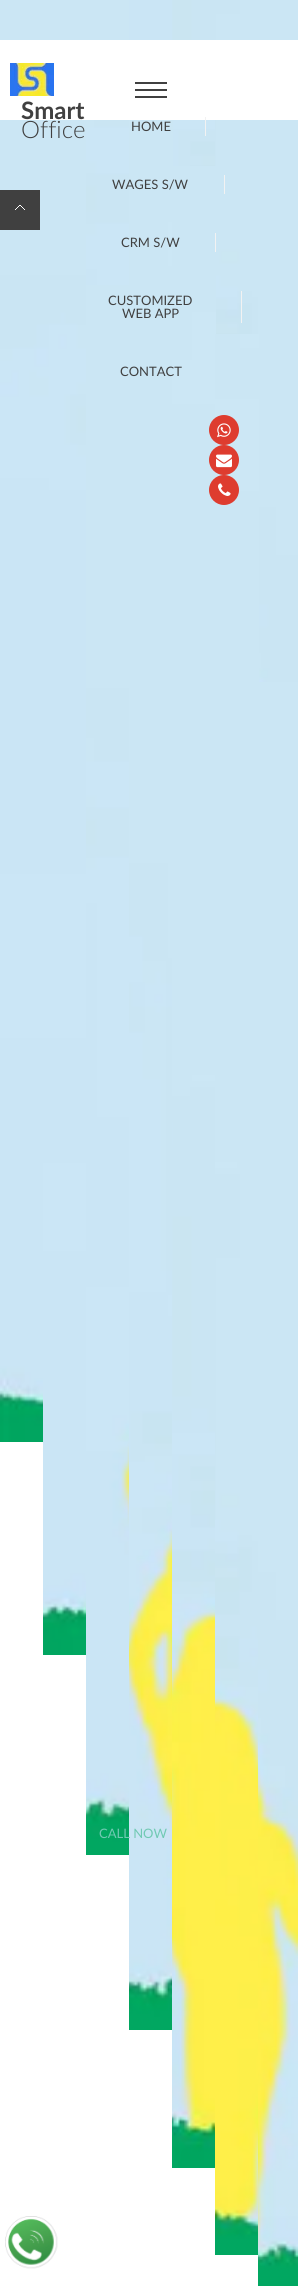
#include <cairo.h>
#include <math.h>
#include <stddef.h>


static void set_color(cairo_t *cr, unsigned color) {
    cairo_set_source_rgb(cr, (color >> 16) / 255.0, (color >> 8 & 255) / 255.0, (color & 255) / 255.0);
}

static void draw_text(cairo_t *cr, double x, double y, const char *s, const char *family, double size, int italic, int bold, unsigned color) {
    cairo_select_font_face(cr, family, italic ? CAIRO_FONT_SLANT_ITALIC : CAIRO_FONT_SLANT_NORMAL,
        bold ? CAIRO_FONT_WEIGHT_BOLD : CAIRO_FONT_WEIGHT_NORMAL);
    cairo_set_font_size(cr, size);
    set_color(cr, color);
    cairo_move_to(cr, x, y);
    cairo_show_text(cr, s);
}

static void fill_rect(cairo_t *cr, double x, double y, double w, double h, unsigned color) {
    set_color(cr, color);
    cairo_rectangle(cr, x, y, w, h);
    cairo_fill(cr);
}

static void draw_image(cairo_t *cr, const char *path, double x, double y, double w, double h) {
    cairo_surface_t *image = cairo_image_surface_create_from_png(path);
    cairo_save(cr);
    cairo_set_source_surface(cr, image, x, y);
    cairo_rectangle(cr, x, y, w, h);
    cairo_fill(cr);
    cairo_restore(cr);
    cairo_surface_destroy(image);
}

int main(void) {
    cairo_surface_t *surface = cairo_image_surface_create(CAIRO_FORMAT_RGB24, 302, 2289);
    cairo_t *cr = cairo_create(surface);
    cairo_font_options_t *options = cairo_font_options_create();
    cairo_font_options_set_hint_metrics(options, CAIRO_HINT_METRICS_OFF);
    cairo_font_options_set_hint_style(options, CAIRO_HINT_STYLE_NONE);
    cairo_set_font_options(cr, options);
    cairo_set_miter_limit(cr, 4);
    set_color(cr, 0xFFFFFF);
    cairo_paint(cr);
    draw_image(cr, "assets/img6.png", 0, 0, 43, 1442);
    fill_rect(cr, 0, 190, 40, 40, 0x404040);
    draw_image(cr, "assets/img1.png", 15, 205, 10, 5);
    draw_image(cr, "assets/img7.png", 43, 0, 43, 1163);
    draw_image(cr, "assets/img8.png", 86, 0, 43, 285);
    draw_image(cr, "assets/img10.png", 172, 0, 43, 166);
    draw_image(cr, "assets/img11.png", 215, 0, 43, 334);
    draw_image(cr, "assets/img12.png", 258, 0, 40, 682);
    fill_rect(cr, 0, 40, 298, 80, 0xFFFFFF);
    draw_image(cr, "assets/img2.png", 10, 63, 44, 33);
    draw_text(cr, 21, 119, "Smart", "Lato", 24, 0, 1, 0x404040);
    draw_text(cr, 21, 138, "Office", "Lato Light", 24, 0, 0, 0x404040);
    fill_rect(cr, 135, 82, 32, 2, 0x404040);
    fill_rect(cr, 135, 89, 32, 2, 0x404040);
    fill_rect(cr, 135, 96, 32, 2, 0x404040);
    fill_rect(cr, 205, 117, 1, 19, 0xF2F2F2);
    draw_image(cr, "assets/img15.png", 129, 120, 44, 1910);
    draw_text(cr, 131, 131, "HOME", "Lato", 13, 0, 0, 0x404040);
    fill_rect(cr, 224, 175, 1, 19, 0xF2F2F2);
    draw_image(cr, "assets/img16.png", 172, 166, 44, 2002);
    draw_text(cr, 112, 189, "WAGES S/W", "Lato", 13, 0, 0, 0x404040);
    fill_rect(cr, 215, 233, 1, 19, 0xF2F2F2);
    draw_text(cr, 121, 247, "CRM S/W", "Lato", 13, 0, 0, 0x404040);
    fill_rect(cr, 241, 291, 1, 32, 0xF2F2F2);
    draw_image(cr, "assets/img14.png", 86, 285, 43, 1570);
    draw_text(cr, 108, 305, "CUSTOMIZED", "Lato", 13, 0, 0, 0x404040);
    draw_text(cr, 122, 318, "WEB APP", "Lato", 13, 0, 0, 0x404040);
    draw_text(cr, 120, 376, "CONTACT", "Lato", 13, 0, 0, 0x404040);
    draw_image(cr, "assets/img17.png", 215, 334, 44, 1921);
    set_color(cr, 0xDE3C2F);
    cairo_arc(cr, 224, 430, 15, 0, 2 * M_PI);
    cairo_fill(cr);
    draw_image(cr, "assets/img3.png", 217, 423, 14, 15);
    cairo_arc(cr, 224, 460, 15, 0, 2 * M_PI);
    cairo_fill(cr);
    draw_image(cr, "assets/img4.png", 216, 454, 16, 14);
    cairo_arc(cr, 224, 490, 15, 0, 2 * M_PI);
    cairo_fill(cr);
    draw_image(cr, "assets/img5.png", 218, 483, 13, 13);
    draw_image(cr, "assets/img9.png", 129, 0, 43, 40);
    draw_image(cr, "assets/img13.png", 43, 1163, 43, 492);
    draw_image(cr, "assets/img18.png", 258, 682, 40, 1604);
    draw_text(cr, 99, 1838, "CALL NOW", "Lato", 13, 0, 0, 0x71C9B3);
    draw_image(cr, "assets/img19.png", 5, 2216, 53, 53);
    cairo_surface_write_to_png(surface, "output.png");
    cairo_font_options_destroy(options);
    cairo_destroy(cr);
    cairo_surface_destroy(surface);
    return 0;
}
